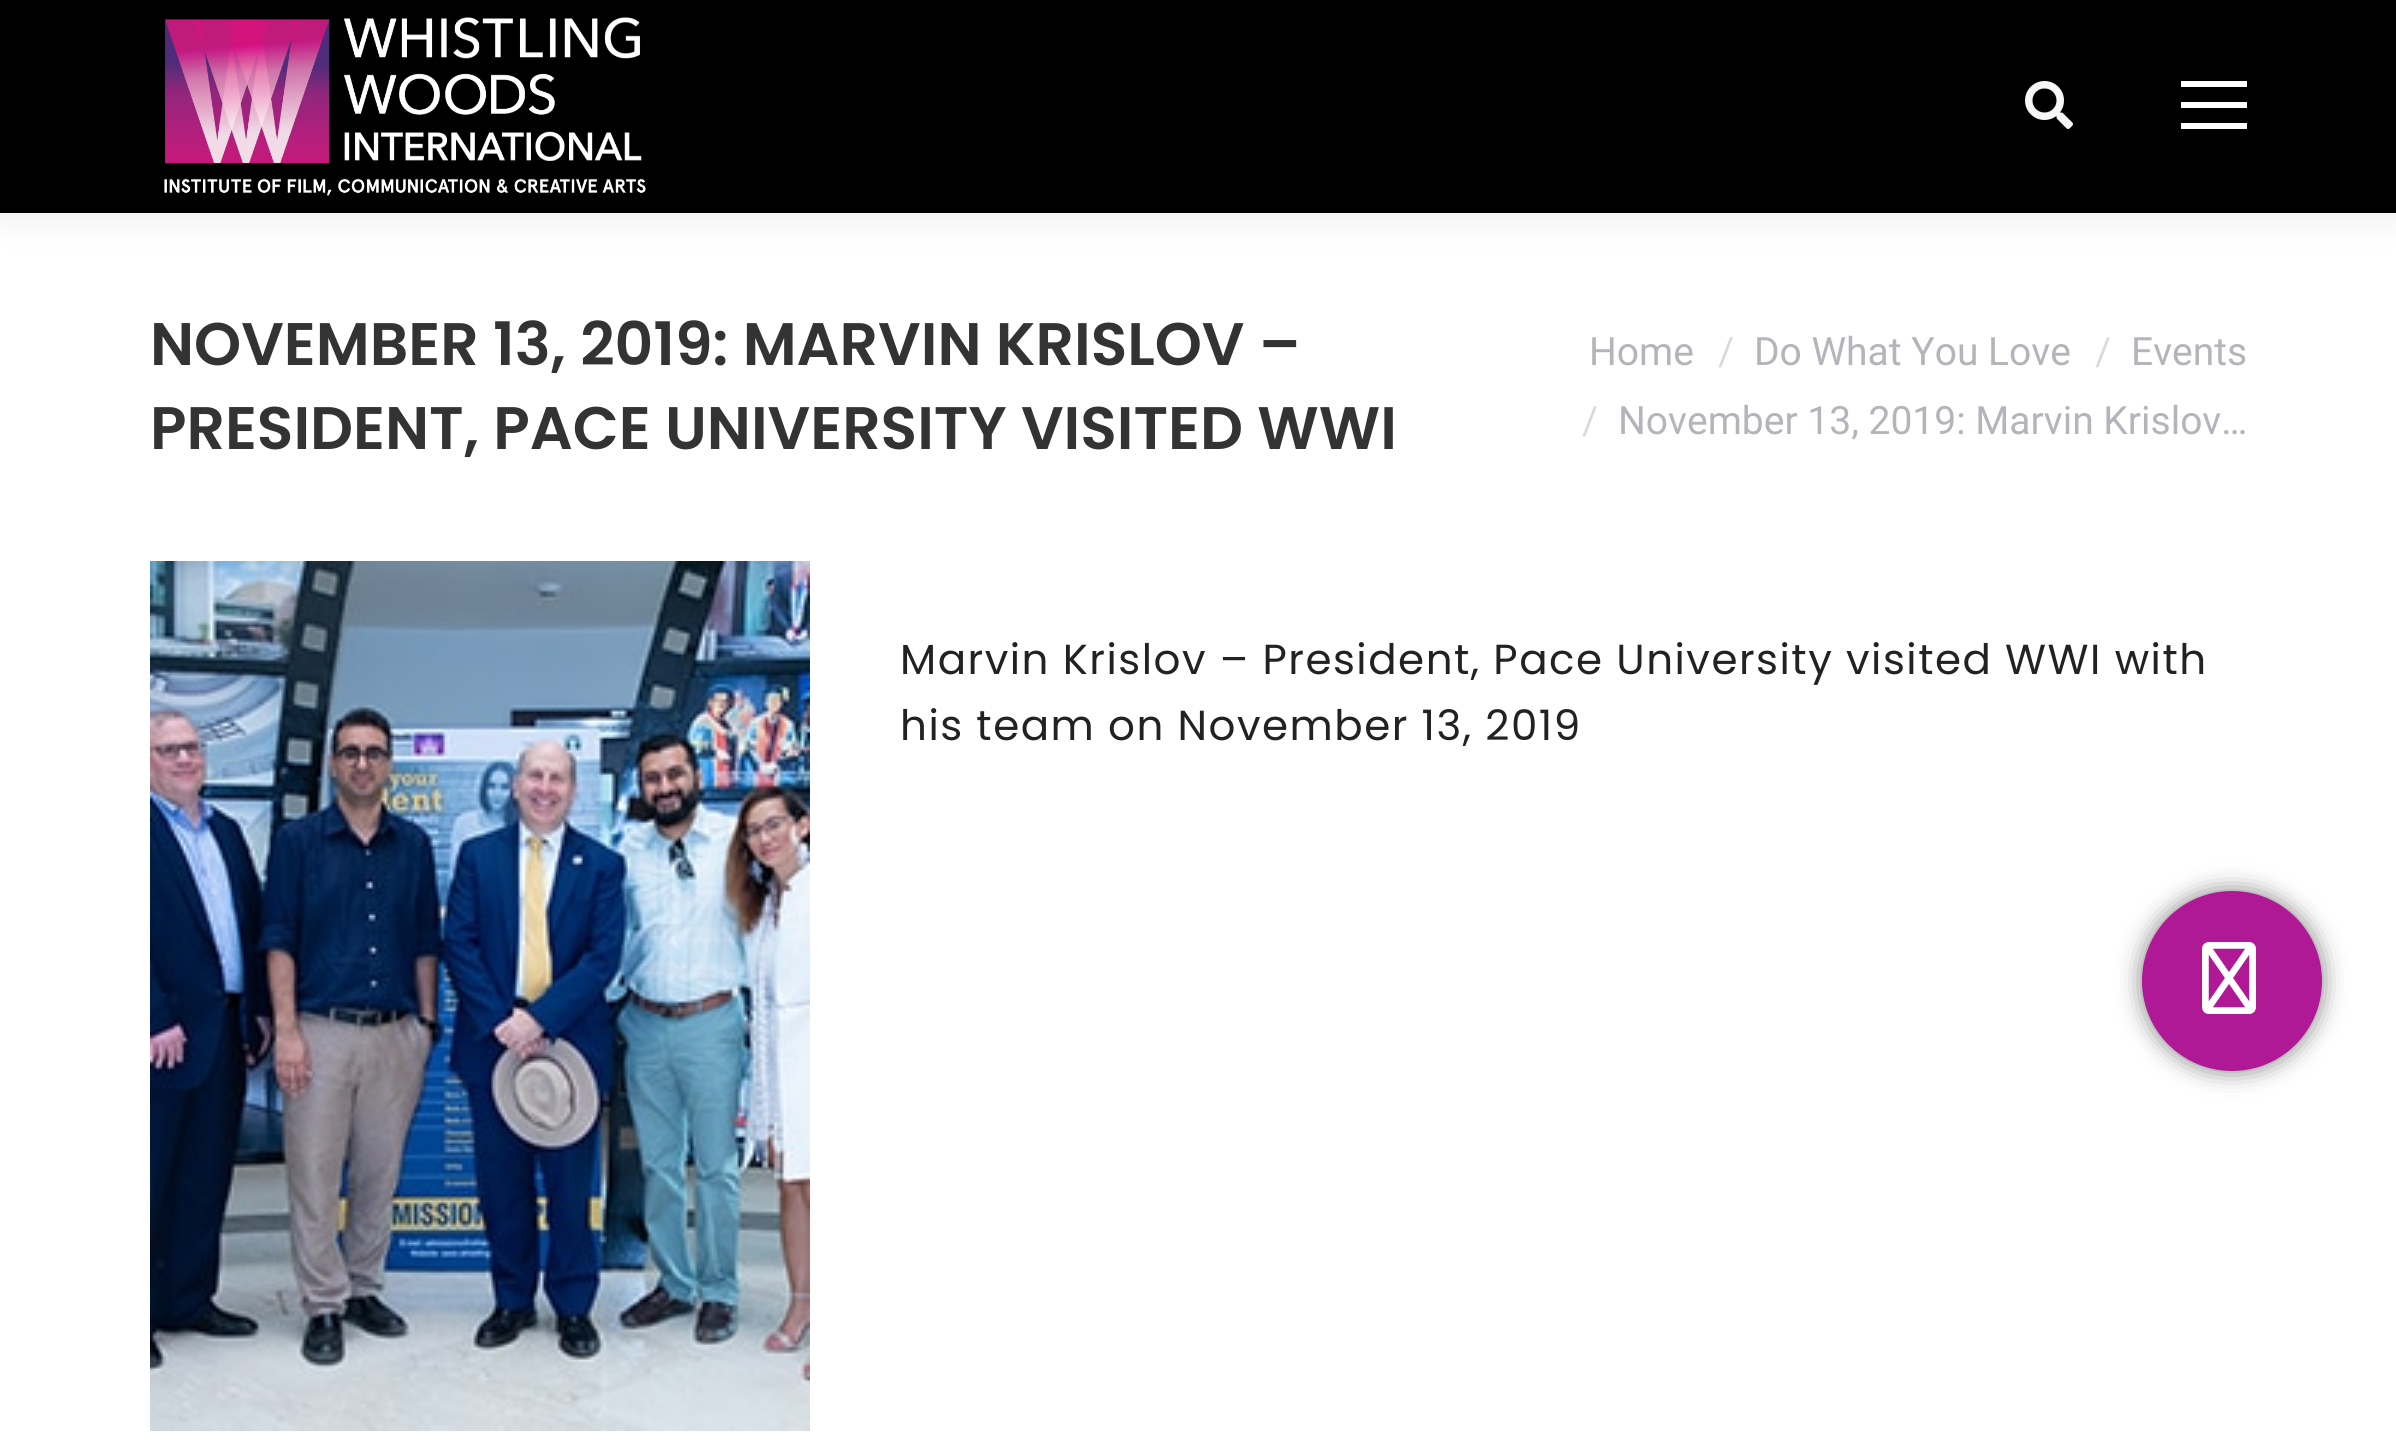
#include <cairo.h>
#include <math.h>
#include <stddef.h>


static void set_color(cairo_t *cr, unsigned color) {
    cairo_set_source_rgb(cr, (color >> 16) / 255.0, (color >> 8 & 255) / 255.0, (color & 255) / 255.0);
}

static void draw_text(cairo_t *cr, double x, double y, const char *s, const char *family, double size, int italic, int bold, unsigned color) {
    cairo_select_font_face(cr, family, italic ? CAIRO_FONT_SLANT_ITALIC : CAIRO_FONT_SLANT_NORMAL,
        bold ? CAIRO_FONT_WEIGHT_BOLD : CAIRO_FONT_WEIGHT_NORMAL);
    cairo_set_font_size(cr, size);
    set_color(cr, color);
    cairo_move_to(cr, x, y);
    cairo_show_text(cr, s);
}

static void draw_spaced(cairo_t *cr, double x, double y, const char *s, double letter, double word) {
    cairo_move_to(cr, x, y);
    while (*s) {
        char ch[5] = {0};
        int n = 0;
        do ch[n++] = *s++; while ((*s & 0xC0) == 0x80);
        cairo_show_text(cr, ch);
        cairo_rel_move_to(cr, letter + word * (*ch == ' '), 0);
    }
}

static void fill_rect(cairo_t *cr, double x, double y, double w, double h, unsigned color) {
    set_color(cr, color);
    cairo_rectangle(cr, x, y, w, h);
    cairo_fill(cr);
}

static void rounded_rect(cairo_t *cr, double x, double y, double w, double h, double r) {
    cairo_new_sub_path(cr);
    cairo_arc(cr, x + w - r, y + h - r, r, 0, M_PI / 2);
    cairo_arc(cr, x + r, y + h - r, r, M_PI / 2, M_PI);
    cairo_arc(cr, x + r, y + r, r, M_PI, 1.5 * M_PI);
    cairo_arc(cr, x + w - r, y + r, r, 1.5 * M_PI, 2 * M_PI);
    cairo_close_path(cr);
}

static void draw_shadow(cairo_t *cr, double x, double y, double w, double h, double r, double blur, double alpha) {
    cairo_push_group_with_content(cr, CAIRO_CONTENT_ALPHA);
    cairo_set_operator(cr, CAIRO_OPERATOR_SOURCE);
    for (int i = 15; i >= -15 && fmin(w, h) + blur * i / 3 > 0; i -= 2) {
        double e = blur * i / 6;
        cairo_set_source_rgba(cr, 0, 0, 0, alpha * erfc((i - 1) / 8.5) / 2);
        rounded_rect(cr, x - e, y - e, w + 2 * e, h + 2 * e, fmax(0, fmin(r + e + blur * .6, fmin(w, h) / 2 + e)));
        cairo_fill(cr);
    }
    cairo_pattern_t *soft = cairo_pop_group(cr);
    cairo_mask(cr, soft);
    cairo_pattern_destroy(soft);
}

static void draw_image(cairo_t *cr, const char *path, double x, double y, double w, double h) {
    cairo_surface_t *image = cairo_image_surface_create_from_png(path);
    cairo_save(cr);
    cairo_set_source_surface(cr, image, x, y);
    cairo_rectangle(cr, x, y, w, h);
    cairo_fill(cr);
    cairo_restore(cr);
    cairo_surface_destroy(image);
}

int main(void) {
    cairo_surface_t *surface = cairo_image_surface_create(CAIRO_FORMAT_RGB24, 2396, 1444);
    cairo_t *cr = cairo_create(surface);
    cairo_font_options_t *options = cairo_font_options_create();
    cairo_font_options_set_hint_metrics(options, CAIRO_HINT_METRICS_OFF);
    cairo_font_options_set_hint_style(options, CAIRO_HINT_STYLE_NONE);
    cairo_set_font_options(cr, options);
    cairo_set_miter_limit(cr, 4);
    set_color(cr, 0xFFFFFF);
    cairo_paint(cr);
    set_color(cr, 0x000000);
    draw_shadow(cr, -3, -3, 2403, 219, 0, 22.5, 0.07);
    fill_rect(cr, 0, 0, 2396, 213, 0x000000);
    draw_image(cr, "assets/img1.png", 164, 17, 482, 179);
    draw_image(cr, "assets/img2.png", 2025, 81, 48, 48);
    fill_rect(cr, 2181, 102, 66, 6, 0xFFFFFF);
    fill_rect(cr, 2181, 81, 66, 6, 0xFFFFFF);
    fill_rect(cr, 2181, 123, 66, 6, 0xFFFFFF);
    draw_text(cr, 150, 365, "NOVEMBER 13, 2019: MARVIN KRISLOV –", "Poppins SemiBold", 60, 0, 0, 0x333333);
    draw_text(cr, 150, 449, "PRESIDENT, PACE UNIVERSITY VISITED WWI", "Poppins SemiBold", 60, 0, 0, 0x333333);
    draw_text(cr, 1589, 365, "Home", "Roboto", 39, 0, 0, 0xB4B5BB);
    draw_text(cr, 1718, 365, "/", "Roboto", 39, 0, 0, 0xDADADD);
    draw_text(cr, 1754, 365, "Do What You Love", "Roboto", 39, 0, 0, 0xB4B5BB);
    draw_text(cr, 2095, 365, "/", "Roboto", 39, 0, 0, 0xDADADD);
    draw_text(cr, 2131, 365, "Events", "Roboto", 39, 0, 0, 0xB4B5BB);
    draw_text(cr, 1582, 434, "/", "Roboto", 39, 0, 0, 0xDADADD);
    draw_text(cr, 1618, 434, "November 13, 2019: Marvin Krislov…", "Roboto", 39, 0, 0, 0xB4B5BB);
    draw_image(cr, "assets/img3.png", 150, 561, 660, 870);
    cairo_select_font_face(cr, "Poppins", CAIRO_FONT_SLANT_NORMAL, CAIRO_FONT_WEIGHT_NORMAL);
    cairo_set_font_size(cr, 42);
    set_color(cr, 0x222222);
    draw_spaced(cr, 900, 674, "Marvin Krislov – President, Pace University visited WWI with", 1.5, 0);
    draw_spaced(cr, 900, 740, "his team on November 13, 2019", 1.5, 0);
    set_color(cr, 0x000000);
    draw_shadow(cr, 2142, 891, 180, 180, 90, 12, 0.5);
    set_color(cr, 0xAF1996);
    cairo_arc(cr, 2232, 981, 90, 0, 2 * M_PI);
    cairo_fill(cr);
    draw_image(cr, "assets/img4.png", 2202, 942, 54, 72);
    cairo_surface_write_to_png(surface, "output.png");
    cairo_font_options_destroy(options);
    cairo_destroy(cr);
    cairo_surface_destroy(surface);
    return 0;
}
